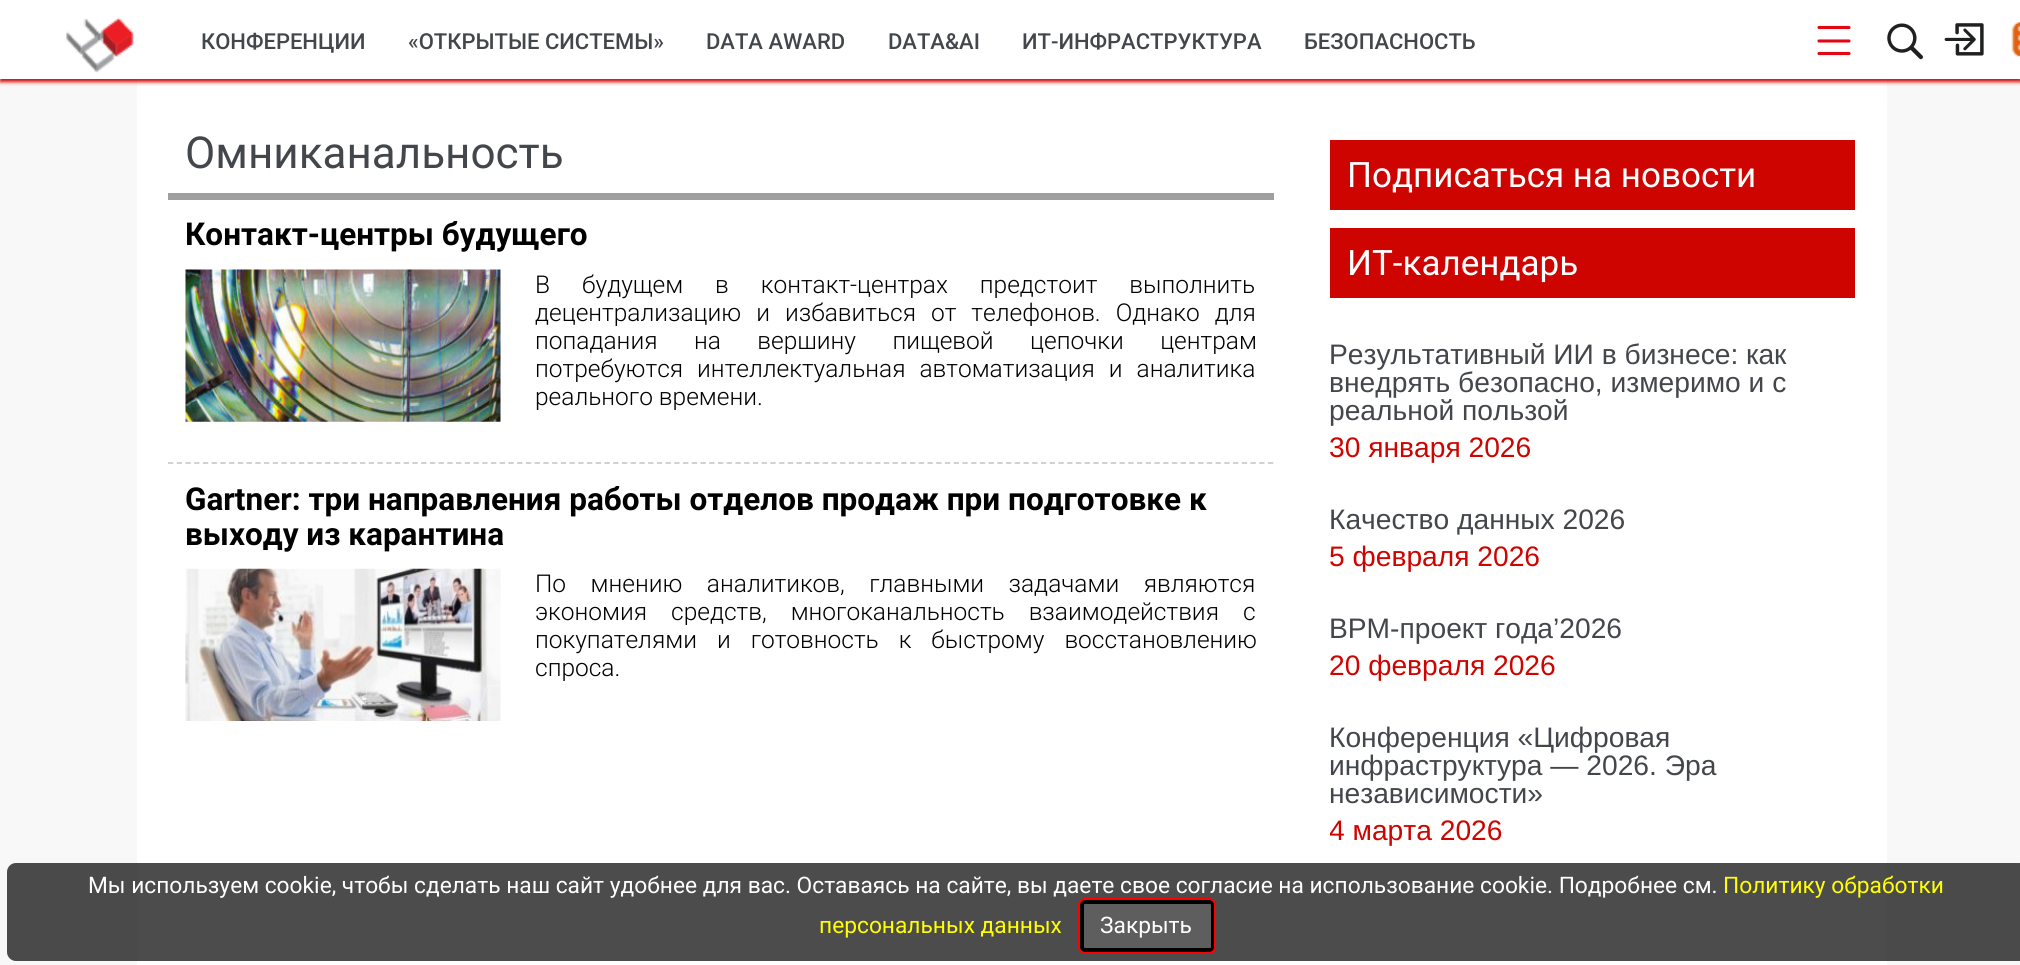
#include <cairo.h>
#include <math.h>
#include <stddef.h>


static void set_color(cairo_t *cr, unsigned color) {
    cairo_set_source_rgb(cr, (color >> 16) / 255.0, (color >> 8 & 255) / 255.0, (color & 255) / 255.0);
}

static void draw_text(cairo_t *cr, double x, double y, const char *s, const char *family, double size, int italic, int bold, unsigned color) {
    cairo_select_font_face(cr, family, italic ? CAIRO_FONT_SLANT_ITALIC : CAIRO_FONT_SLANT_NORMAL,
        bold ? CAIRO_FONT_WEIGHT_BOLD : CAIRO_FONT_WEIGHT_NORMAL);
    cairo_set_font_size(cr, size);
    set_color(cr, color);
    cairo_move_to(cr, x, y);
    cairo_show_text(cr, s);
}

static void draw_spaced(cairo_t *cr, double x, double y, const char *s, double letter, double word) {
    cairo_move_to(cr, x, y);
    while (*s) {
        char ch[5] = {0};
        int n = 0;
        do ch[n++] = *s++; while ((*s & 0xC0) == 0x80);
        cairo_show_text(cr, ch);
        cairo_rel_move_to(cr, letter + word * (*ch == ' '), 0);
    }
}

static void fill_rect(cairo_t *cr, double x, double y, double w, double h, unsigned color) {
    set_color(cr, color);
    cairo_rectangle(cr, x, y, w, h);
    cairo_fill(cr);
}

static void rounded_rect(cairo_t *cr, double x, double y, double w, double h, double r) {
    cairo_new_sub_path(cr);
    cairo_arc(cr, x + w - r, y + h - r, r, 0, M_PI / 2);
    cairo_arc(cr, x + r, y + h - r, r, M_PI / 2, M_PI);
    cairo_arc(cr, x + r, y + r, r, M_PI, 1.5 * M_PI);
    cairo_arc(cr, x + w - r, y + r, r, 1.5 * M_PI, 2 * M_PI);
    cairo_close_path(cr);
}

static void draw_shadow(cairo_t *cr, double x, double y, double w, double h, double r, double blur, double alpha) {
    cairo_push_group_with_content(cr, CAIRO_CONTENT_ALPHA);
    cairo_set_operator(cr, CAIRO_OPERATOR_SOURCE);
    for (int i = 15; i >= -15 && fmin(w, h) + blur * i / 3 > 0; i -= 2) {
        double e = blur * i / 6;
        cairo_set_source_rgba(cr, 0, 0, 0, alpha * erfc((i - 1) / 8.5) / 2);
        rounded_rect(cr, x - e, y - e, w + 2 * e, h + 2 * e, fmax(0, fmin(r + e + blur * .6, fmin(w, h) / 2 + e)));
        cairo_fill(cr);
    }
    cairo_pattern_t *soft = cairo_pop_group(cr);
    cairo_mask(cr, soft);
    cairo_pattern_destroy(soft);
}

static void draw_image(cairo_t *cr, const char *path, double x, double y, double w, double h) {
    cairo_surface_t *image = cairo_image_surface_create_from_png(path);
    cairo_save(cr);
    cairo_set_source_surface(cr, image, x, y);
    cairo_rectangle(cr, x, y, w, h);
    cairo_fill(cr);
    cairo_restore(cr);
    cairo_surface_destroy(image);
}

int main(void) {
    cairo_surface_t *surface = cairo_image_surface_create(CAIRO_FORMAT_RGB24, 2020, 965);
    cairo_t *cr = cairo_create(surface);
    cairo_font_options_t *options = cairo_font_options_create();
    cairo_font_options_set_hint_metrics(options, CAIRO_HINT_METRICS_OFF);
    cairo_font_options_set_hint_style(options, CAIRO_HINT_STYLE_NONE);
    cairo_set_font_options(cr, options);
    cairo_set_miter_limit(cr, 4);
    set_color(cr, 0xF8F8F8);
    cairo_paint(cr);
    fill_rect(cr, 137, 79, 1750, 886, 0xFFFFFF);
    set_color(cr, 0xCD0400);
    draw_shadow(cr, 0, 4, 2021, 78, 0, 2, 1);
    fill_rect(cr, 0, 0, 2020, 79, 0xFFFFFF);
    draw_image(cr, "assets/img1.png", 66, 17, 68, 56);
    draw_text(cr, 201, 49, "КОНФЕРЕНЦИИ", "Roboto Medium", 22, 0, 0, 0x43464B);
    draw_text(cr, 408, 49, "«ОТКРЫТЫЕ СИСТЕМЫ»", "Roboto Medium", 22, 0, 0, 0x43464B);
    draw_text(cr, 706, 49, "DATA AWARD", "Roboto Medium", 22, 0, 0, 0x43464B);
    draw_text(cr, 888, 49, "DATA&AI", "Roboto Medium", 22, 0, 0, 0x43464B);
    draw_text(cr, 1022, 49, "ИТ-ИНФРАСТРУКТУРА", "Roboto Medium", 22, 0, 0, 0x43464B);
    draw_text(cr, 1304, 49, "БЕЗОПАСНОСТЬ", "Roboto Medium", 22, 0, 0, 0x43464B);
    cairo_new_path(cr);
    cairo_move_to(cr, 1819, 27.5);
    cairo_line_to(cr, 1849, 27.5);
    cairo_move_to(cr, 1819, 41);
    cairo_line_to(cr, 1849, 41);
    cairo_move_to(cr, 1819, 53.5);
    cairo_line_to(cr, 1849, 53.5);
    set_color(cr, 0xE30613);
    cairo_set_line_width(cr, 3.1);
    cairo_set_line_cap(cr, CAIRO_LINE_CAP_ROUND);
    cairo_stroke(cr);
    draw_image(cr, "assets/img2.png", 1887, 23, 36, 37);
    draw_image(cr, "assets/img3.png", 1944, 23, 40, 33);
    draw_image(cr, "assets/img4.png", 2011, 21, 9, 36);
    fill_rect(cr, 168, 193, 1106, 7, 0x9F9F9F);
    draw_text(cr, 185, 168, "Омниканальность", "Roboto", 44, 0, 0, 0x43464B);
    draw_text(cr, 185, 245, "Контакт-центры будущего", "Roboto", 31.5, 0, 1, 0x000000);
    draw_image(cr, "assets/img5.png", 185, 269, 316, 153);
    cairo_select_font_face(cr, "Roboto Light", CAIRO_FONT_SLANT_NORMAL, CAIRO_FONT_WEIGHT_NORMAL);
    cairo_set_font_size(cr, 24.5);
    draw_spaced(cr, 535, 293, "В будущем в контакт-центрах предстоит выполнить", 0, 26);
    draw_spaced(cr, 535, 321, "децентрализацию и избавиться от телефонов. Однако для", 0, 9);
    draw_spaced(cr, 535, 349, "попадания на вершину пищевой цепочки центрам", 0, 30.5);
    draw_spaced(cr, 535, 377, "потребуются интеллектуальная автоматизация и аналитика", 0, 8);
    draw_text(cr, 535, 405, "реального времени.", "Roboto Light", 24.5, 0, 0, 0x000000);
    cairo_new_path(cr);
    cairo_move_to(cr, 168, 463);
    cairo_line_to(cr, 1274, 463);
    set_color(cr, 0xCCCCCC);
    cairo_set_line_width(cr, 1.8);
    cairo_set_line_cap(cr, CAIRO_LINE_CAP_BUTT);
    cairo_set_dash(cr, (double[]){5.25, 3.48}, 2, 0);
    cairo_stroke(cr);
    draw_text(cr, 185, 510, "Gartner: три направления работы отделов продаж при подготовке к", "Roboto", 31.5, 0, 1, 0x000000);
    draw_text(cr, 185, 545, "выходу из карантина", "Roboto", 31.5, 0, 1, 0x000000);
    draw_image(cr, "assets/img6.png", 185, 568, 316, 153);
    cairo_select_font_face(cr, "Roboto Light", CAIRO_FONT_SLANT_NORMAL, CAIRO_FONT_WEIGHT_NORMAL);
    cairo_set_font_size(cr, 24.5);
    draw_spaced(cr, 535, 592, "По мнению аналитиков, главными задачами являются", 0, 18.5);
    draw_spaced(cr, 535, 620, "экономия средств, многоканальность взаимодействия с", 0, 18);
    draw_spaced(cr, 535, 648, "покупателями и готовность к быстрому восстановлению", 0, 14);
    draw_text(cr, 535, 676, "спроса.", "Roboto Light", 24.5, 0, 0, 0x000000);
    fill_rect(cr, 1330, 140, 525, 70, 0xCD0400);
    draw_text(cr, 1347, 187, "Подписаться на новости", "Roboto", 35, 0, 0, 0xFFFFFF);
    fill_rect(cr, 1330, 228, 525, 70, 0xCD0400);
    draw_text(cr, 1347, 275, "ИТ-календарь", "Roboto", 35, 0, 0, 0xFFFFFF);
    draw_text(cr, 1329, 364, "Результативный ИИ в бизнесе: как", "Liberation Sans", 28.2, 0, 0, 0x43464B);
    draw_text(cr, 1329, 392, "внедрять безопасно, измеримо и с", "Liberation Sans", 28.2, 0, 0, 0x43464B);
    draw_text(cr, 1329, 420, "реальной пользой", "Liberation Sans", 28.2, 0, 0, 0x43464B);
    draw_text(cr, 1329, 457, "30 января 2026", "Liberation Sans", 28.2, 0, 0, 0xCD0400);
    draw_text(cr, 1329, 529, "Качество данных 2026", "Liberation Sans", 28.2, 0, 0, 0x43464B);
    draw_text(cr, 1329, 566, "5 февраля 2026", "Liberation Sans", 28.2, 0, 0, 0xCD0400);
    draw_text(cr, 1329, 638, "BPM-проект года’2026", "Liberation Sans", 28.2, 0, 0, 0x43464B);
    draw_text(cr, 1329, 675, "20 февраля 2026", "Liberation Sans", 28.2, 0, 0, 0xCD0400);
    draw_text(cr, 1329, 747, "Конференция «Цифровая", "Liberation Sans", 28.2, 0, 0, 0x43464B);
    draw_text(cr, 1329, 775, "инфраструктура ― 2026. Эра", "Liberation Sans", 28.2, 0, 0, 0x43464B);
    draw_text(cr, 1329, 803, "независимости»", "Liberation Sans", 28.2, 0, 0, 0x43464B);
    cairo_save(cr);
    cairo_rectangle(cr, 1330, 79, 525, 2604);
    cairo_clip(cr);
    draw_text(cr, 1329, 840, "4 марта 2026", "Liberation Sans", 28.2, 0, 0, 0xCD0400);
    cairo_restore(cr);
    cairo_set_source_rgba(cr, 0, 0, 0, 0.7);
    rounded_rect(cr, 7, 863, 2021, 98, 9);
    cairo_fill(cr);
    draw_text(cr, 88, 893, "Мы используем cookie, чтобы сделать наш сайт удобнее для вас. Оставаясь на сайте, вы даете свое согласие на использование cookie. Подробнее см.", "Roboto", 22.75, 0, 0, 0xFFFFFF);
    draw_text(cr, 1723, 893, "Политику обработки", "Roboto", 22.75, 0, 0, 0xFFFF00);
    draw_text(cr, 819, 933, "персональных данных", "Roboto", 22.75, 0, 0, 0xFFFF00);
    set_color(cr, 0x5E5E5E);
    rounded_rect(cr, 1082, 902, 131, 48, 3);
    cairo_fill_preserve(cr);
    set_color(cr, 0x000000);
    cairo_set_line_width(cr, 4);
    cairo_set_dash(cr, NULL, 0, 0);
    cairo_stroke(cr);
    rounded_rect(cr, 1079, 899, 136, 54, 6);
    set_color(cr, 0xFF0000);
    cairo_set_line_width(cr, 2);
    cairo_stroke(cr);
    draw_text(cr, 1100, 933, "Закрыть", "Roboto", 22.75, 0, 0, 0xFFFFFF);
    cairo_surface_write_to_png(surface, "output.png");
    cairo_font_options_destroy(options);
    cairo_destroy(cr);
    cairo_surface_destroy(surface);
    return 0;
}
